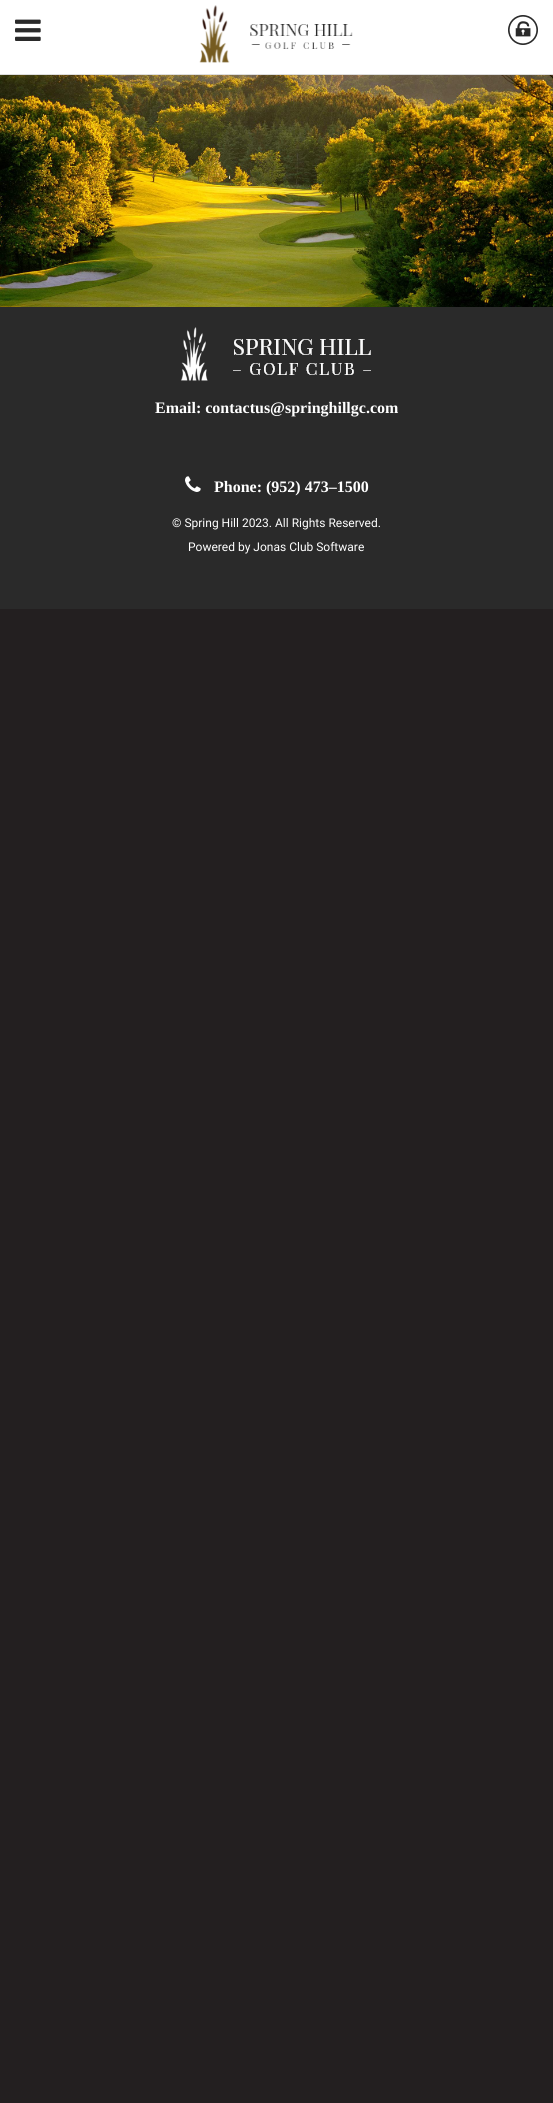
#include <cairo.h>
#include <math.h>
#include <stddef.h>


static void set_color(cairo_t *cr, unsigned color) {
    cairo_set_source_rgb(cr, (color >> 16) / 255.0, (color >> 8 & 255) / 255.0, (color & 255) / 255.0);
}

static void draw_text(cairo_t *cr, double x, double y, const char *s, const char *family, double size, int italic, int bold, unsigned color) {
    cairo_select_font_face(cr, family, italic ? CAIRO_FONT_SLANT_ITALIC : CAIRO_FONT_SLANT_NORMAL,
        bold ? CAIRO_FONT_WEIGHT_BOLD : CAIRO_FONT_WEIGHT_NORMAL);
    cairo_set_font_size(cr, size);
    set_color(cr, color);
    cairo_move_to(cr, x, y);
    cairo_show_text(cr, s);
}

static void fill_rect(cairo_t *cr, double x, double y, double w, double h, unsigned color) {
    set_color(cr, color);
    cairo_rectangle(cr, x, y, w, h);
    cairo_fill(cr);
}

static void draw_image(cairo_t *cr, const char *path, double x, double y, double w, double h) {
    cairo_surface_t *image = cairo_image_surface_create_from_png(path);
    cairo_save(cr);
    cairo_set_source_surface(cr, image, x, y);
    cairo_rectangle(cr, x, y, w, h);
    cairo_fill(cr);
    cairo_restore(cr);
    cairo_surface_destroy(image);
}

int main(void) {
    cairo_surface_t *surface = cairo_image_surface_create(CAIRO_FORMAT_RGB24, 553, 2103);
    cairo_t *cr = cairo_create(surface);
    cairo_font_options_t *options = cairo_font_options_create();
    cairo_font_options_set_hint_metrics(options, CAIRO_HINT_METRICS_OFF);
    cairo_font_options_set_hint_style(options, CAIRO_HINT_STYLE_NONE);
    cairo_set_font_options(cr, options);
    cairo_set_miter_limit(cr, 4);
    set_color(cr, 0x231F20);
    cairo_paint(cr);
    fill_rect(cr, 0, 0, 553, 74, 0xFFFFFF);
    fill_rect(cr, 0, 74, 553, 1, 0xDDDDDD);
    draw_image(cr, "assets/img1.png", 15, 19, 26, 22);
    draw_image(cr, "assets/img2.png", 199, 5, 154, 58);
    draw_image(cr, "assets/img3.png", 508, 15, 30, 30);
    draw_image(cr, "assets/img4.png", 0, 75, 553, 232);
    fill_rect(cr, 0, 307, 553, 302, 0x2A2A2A);
    draw_image(cr, "assets/img5.png", 181, 327, 190, 54);
    draw_text(cr, 155, 413, "Email: contactus@springhillgc.com", "Liberation Serif", 16, 0, 1, 0xFFFFFF);
    draw_image(cr, "assets/img6.png", 185, 476, 16, 16);
    draw_text(cr, 214, 492, "Phone: (952) 473–1500", "Liberation Serif", 16, 0, 1, 0xFFFFFF);
    draw_text(cr, 172, 527, "© Spring Hill 2023. All Rights Reserved.", "Roboto", 12, 0, 0, 0xFFFFFF);
    draw_text(cr, 188, 551, "Powered by Jonas Club Software", "Roboto", 12, 0, 0, 0xFFFFFF);
    cairo_surface_write_to_png(surface, "output.png");
    cairo_font_options_destroy(options);
    cairo_destroy(cr);
    cairo_surface_destroy(surface);
    return 0;
}
